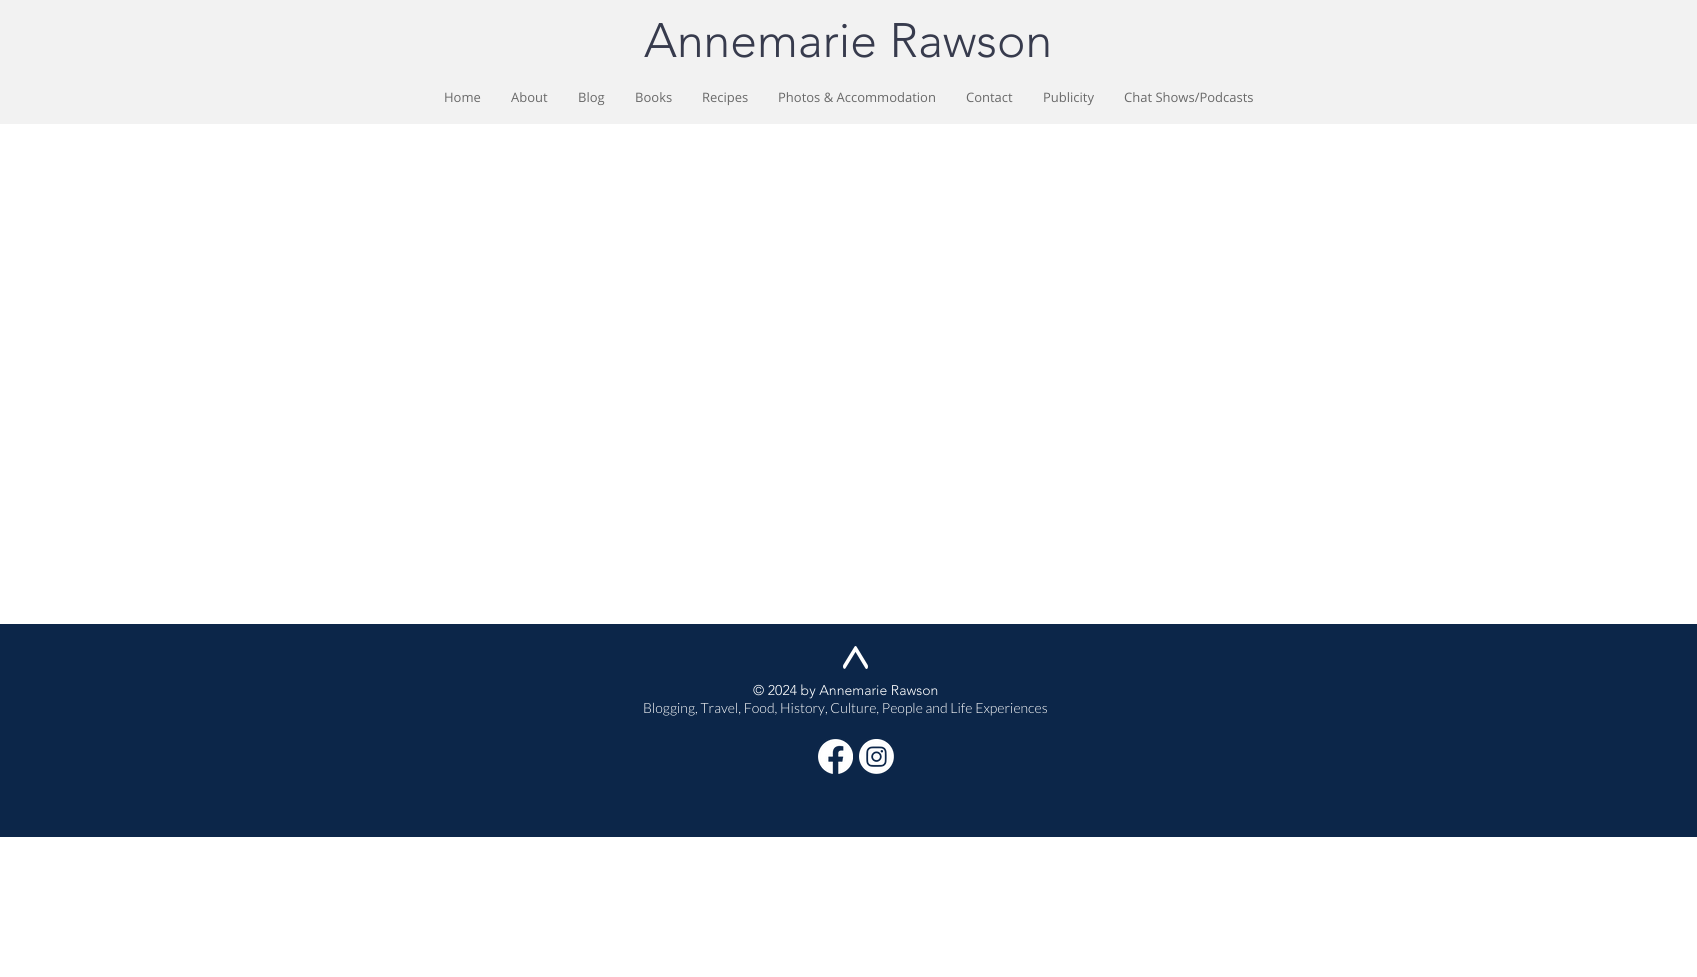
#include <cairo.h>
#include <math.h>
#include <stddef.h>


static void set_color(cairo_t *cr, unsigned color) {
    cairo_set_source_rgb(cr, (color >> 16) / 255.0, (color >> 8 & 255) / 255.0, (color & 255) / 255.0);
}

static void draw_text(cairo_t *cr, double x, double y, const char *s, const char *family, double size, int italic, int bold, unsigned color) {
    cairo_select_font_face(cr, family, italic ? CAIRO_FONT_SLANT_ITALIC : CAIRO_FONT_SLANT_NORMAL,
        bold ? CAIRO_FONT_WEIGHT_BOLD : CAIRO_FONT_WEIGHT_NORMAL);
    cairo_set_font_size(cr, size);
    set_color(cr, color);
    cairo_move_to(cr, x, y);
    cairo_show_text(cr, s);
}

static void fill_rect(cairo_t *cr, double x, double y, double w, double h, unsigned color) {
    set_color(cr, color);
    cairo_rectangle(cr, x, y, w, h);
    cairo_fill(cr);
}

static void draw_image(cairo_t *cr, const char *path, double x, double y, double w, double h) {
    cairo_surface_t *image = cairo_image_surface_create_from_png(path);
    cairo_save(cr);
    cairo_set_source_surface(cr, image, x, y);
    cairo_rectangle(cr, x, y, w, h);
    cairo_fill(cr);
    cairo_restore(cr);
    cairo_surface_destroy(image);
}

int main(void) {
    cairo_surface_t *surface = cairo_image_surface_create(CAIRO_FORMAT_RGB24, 1697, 977);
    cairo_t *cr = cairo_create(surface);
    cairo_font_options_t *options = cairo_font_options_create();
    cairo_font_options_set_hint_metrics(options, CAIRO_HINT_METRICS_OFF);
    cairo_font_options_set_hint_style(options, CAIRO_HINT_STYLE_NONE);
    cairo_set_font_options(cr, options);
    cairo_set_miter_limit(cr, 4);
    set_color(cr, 0xFFFFFF);
    cairo_paint(cr);
    fill_rect(cr, 0, 0, 1697, 124, 0xF2F2F2);
    draw_text(cr, 644, 57, "Annemarie Rawson", "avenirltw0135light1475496 Light", 48, 0, 0, 0x373B4D);
    draw_text(cr, 444, 102, "Home", "Open Sans", 13, 0, 0, 0x696969);
    draw_text(cr, 511, 102, "About", "Open Sans", 13, 0, 0, 0x696969);
    draw_text(cr, 578, 102, "Blog", "Open Sans", 13, 0, 0, 0x696969);
    draw_text(cr, 635, 102, "Books", "Open Sans", 13, 0, 0, 0x696969);
    draw_text(cr, 702, 102, "Recipes", "Open Sans", 13, 0, 0, 0x696969);
    draw_text(cr, 778, 102, "Photos & Accommodation", "Open Sans", 13, 0, 0, 0x696969);
    draw_text(cr, 966, 102, "Contact", "Open Sans", 13, 0, 0, 0x696969);
    draw_text(cr, 1043, 102, "Publicity", "Open Sans", 13, 0, 0, 0x696969);
    draw_text(cr, 1124, 102, "Chat Shows/Podcasts", "Open Sans", 13, 0, 0, 0x696969);
    fill_rect(cr, 0, 624, 1697, 213, 0x0C2649);
    draw_image(cr, "assets/img1.png", 843, 646, 25, 23);
    draw_text(cr, 753, 695, "© 2024 by Annemarie Rawson", "avenirltw0135light1475496 Light", 14, 0, 0, 0xFFFFFF);
    draw_text(cr, 643, 713, "Blogging, Travel, Food, History, Culture, People and Life Experiences", "Lato Light", 14, 0, 0, 0xFFFFFF);
    draw_image(cr, "assets/img2.png", 818, 739, 35, 35);
    draw_image(cr, "assets/img3.png", 859, 739, 35, 35);
    cairo_surface_write_to_png(surface, "output.png");
    cairo_font_options_destroy(options);
    cairo_destroy(cr);
    cairo_surface_destroy(surface);
    return 0;
}
